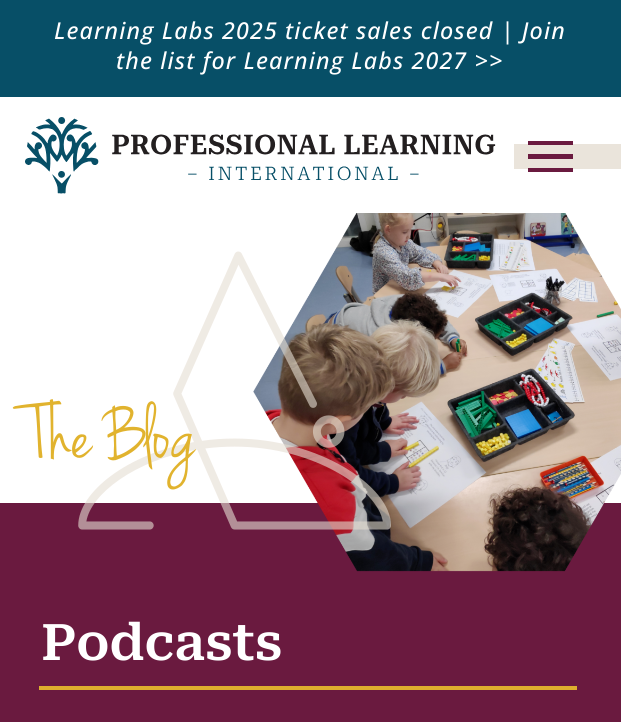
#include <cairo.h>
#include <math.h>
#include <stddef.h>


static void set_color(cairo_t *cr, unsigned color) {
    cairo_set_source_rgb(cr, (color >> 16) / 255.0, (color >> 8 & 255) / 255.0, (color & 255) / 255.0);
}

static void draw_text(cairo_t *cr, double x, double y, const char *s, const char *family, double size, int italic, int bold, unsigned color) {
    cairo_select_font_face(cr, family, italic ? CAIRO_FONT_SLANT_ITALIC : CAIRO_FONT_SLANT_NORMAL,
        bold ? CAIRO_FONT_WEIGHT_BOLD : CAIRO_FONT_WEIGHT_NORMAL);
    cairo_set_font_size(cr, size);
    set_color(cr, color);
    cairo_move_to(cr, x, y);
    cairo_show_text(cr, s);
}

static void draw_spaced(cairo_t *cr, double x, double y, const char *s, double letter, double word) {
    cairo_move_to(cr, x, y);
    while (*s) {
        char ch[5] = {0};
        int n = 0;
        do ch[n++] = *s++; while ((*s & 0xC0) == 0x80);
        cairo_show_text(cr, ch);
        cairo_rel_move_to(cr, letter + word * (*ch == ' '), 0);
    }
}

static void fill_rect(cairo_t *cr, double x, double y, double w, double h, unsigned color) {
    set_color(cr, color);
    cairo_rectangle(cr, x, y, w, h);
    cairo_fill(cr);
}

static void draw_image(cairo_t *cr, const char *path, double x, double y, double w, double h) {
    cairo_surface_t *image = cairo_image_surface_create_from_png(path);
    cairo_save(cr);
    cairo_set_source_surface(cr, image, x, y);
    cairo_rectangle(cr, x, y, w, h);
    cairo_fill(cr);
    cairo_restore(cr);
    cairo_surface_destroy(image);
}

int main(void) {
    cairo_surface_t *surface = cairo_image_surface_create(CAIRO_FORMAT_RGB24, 621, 722);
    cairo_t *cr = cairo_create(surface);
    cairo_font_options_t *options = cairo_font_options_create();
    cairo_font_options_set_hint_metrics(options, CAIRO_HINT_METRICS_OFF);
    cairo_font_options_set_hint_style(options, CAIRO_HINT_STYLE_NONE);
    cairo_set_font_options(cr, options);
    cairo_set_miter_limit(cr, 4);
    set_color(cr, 0xFFFFFF);
    cairo_paint(cr);
    fill_rect(cr, 0, 0, 621, 97, 0x074F67);
    cairo_select_font_face(cr, "Open Sans Medium", CAIRO_FONT_SLANT_ITALIC, CAIRO_FONT_WEIGHT_NORMAL);
    cairo_set_font_size(cr, 23.25);
    set_color(cr, 0xFFFFFF);
    draw_spaced(cr, 54, 39, "Learning Labs 2025 ticket sales closed | Join", 1.15, 0);
    draw_spaced(cr, 116, 69, "the list for Learning Labs 2027 >>", 1.15, 0);
    draw_image(cr, "assets/img1.png", 25, 117, 471, 77);
    fill_rect(cr, 514, 144, 107, 25, 0xEAE4DB);
    set_color(cr, 0x6A1A3F);
    cairo_new_path(cr);
    cairo_move_to(cr, 528, 154);
    cairo_line_to(cr, 573, 154);
    cairo_line_to(cr, 573, 159);
    cairo_line_to(cr, 528, 159);
    cairo_close_path(cr);
    cairo_move_to(cr, 528, 141);
    cairo_line_to(cr, 573, 141);
    cairo_line_to(cr, 573, 145);
    cairo_line_to(cr, 528, 145);
    cairo_close_path(cr);
    cairo_move_to(cr, 528, 168);
    cairo_line_to(cr, 573, 168);
    cairo_line_to(cr, 573, 172);
    cairo_line_to(cr, 528, 172);
    cairo_close_path(cr);
    cairo_fill(cr);
    fill_rect(cr, 0, 503, 621, 219, 0x6A1A3F);
    draw_image(cr, "assets/img3.png", 253, 213, 368, 359);
    draw_image(cr, "assets/img2.png", 78, 251, 313, 279);
    draw_text(cr, 29, 458, "The Blog", "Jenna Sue", 81.5, 0, 0, 0xE1B32E);
    draw_text(cr, 41, 660, "Podcasts", "Roboto Serif SemiBold", 50.5, 0, 0, 0xFFFFFF);
    fill_rect(cr, 39, 686, 538, 4, 0xDEAF2E);
    cairo_surface_write_to_png(surface, "output.png");
    cairo_font_options_destroy(options);
    cairo_destroy(cr);
    cairo_surface_destroy(surface);
    return 0;
}
